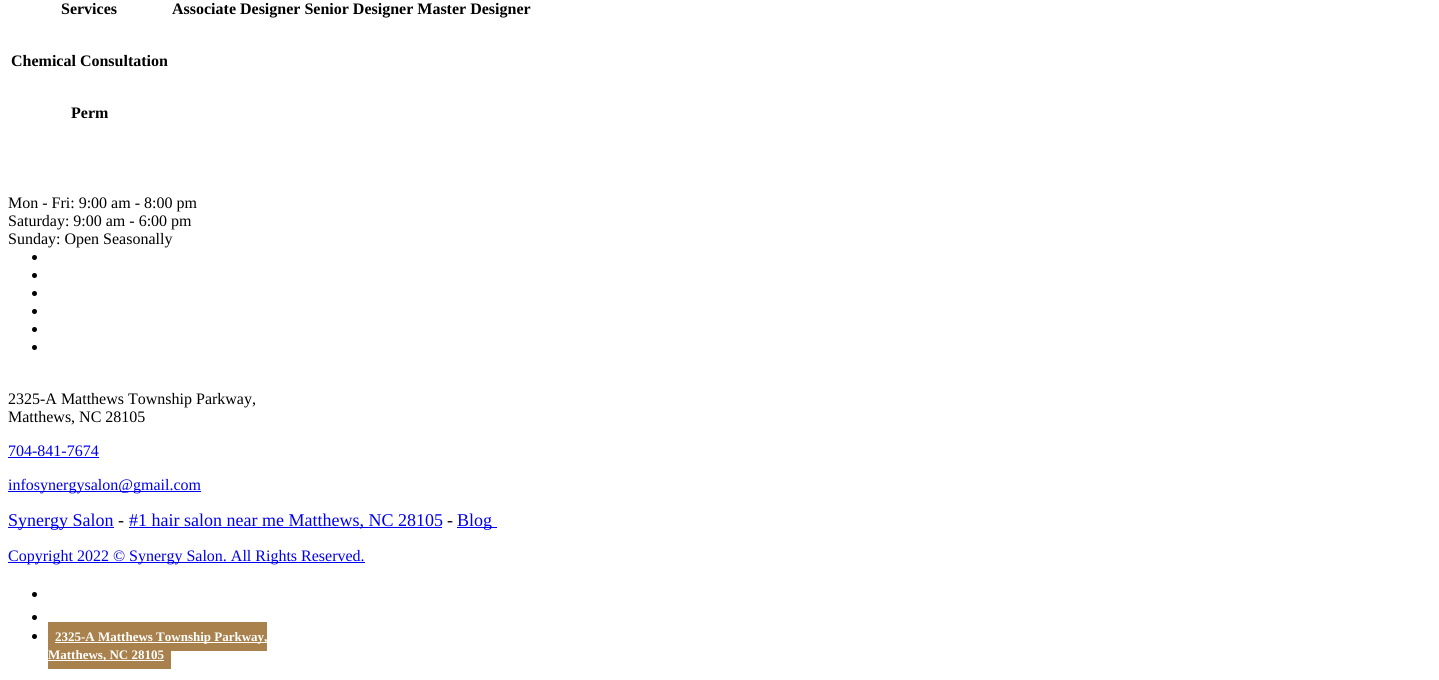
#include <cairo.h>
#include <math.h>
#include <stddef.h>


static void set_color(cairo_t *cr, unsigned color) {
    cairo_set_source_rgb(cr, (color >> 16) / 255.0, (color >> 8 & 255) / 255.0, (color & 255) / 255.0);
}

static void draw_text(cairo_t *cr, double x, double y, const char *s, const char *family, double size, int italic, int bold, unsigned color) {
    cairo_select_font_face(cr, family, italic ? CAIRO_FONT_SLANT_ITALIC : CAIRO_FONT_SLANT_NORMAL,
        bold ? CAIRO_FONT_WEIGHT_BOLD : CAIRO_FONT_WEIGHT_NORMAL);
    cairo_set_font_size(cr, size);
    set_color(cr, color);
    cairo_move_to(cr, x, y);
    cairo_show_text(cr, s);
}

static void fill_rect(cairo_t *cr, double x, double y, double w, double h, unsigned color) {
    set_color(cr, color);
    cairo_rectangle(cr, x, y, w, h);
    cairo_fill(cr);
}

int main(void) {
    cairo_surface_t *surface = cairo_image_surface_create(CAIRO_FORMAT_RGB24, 1439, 680);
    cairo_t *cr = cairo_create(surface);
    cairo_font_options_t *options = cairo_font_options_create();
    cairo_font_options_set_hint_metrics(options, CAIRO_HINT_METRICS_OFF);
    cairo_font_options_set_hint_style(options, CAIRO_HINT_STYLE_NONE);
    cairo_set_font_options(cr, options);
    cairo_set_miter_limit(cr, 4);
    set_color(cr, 0xFFFFFF);
    cairo_paint(cr);
    draw_text(cr, 61, 14, "Services", "Liberation Serif", 16, 0, 1, 0x000000);
    draw_text(cr, 172, 14, "Associate Designer Senior Designer Master Designer", "Liberation Serif", 16, 0, 1, 0x000000);
    draw_text(cr, 11, 66, "Chemical Consultation", "Liberation Serif", 16, 0, 1, 0x000000);
    draw_text(cr, 71, 118, "Perm", "Liberation Serif", 16, 0, 1, 0x000000);
    draw_text(cr, 8, 208, "Mon - Fri: 9:00 am - 8:00 pm", "Liberation Serif", 16, 0, 0, 0x000000);
    draw_text(cr, 8, 226, "Saturday: 9:00 am - 6:00 pm", "Liberation Serif", 16, 0, 0, 0x000000);
    draw_text(cr, 8, 244, "Sunday: Open Seasonally", "Liberation Serif", 16, 0, 0, 0x000000);
    cairo_new_path(cr);
    cairo_arc(cr, 34.5, 257.5, 2.5, 0, 2 * M_PI);
    cairo_fill(cr);
    cairo_arc(cr, 34.5, 275.5, 2.5, 0, 2 * M_PI);
    cairo_fill(cr);
    cairo_arc(cr, 34.5, 293.5, 2.5, 0, 2 * M_PI);
    cairo_fill(cr);
    cairo_arc(cr, 34.5, 311.5, 2.5, 0, 2 * M_PI);
    cairo_fill(cr);
    cairo_arc(cr, 34.5, 329.5, 2.5, 0, 2 * M_PI);
    cairo_fill(cr);
    cairo_arc(cr, 34.5, 347.5, 2.5, 0, 2 * M_PI);
    cairo_fill(cr);
    draw_text(cr, 8, 404, "2325-A Matthews Township Parkway,", "Liberation Serif", 16, 0, 0, 0x000000);
    draw_text(cr, 8, 422, "Matthews, NC 28105", "Liberation Serif", 16, 0, 0, 0x000000);
    draw_text(cr, 8, 456, "704-841-7674", "Liberation Serif", 16, 0, 0, 0x0000EE);
    fill_rect(cr, 8, 457, 91, 1, 0x0000EE);
    fill_rect(cr, 8, 491, 193, 1, 0x0000EE);
    draw_text(cr, 8, 490, "infosynergysalon@gmail.com", "Liberation Serif", 16, 0, 0, 0x0000EE);
    fill_rect(cr, 8, 527, 106, 1, 0x0000EE);
    draw_text(cr, 8, 526, "Synergy Salon", "Liberation Serif", 18, 0, 0, 0x0000EE);
    draw_text(cr, 118, 526, "-", "Liberation Serif", 18, 0, 0, 0x000000);
    fill_rect(cr, 129, 527, 313, 1, 0x0000EE);
    draw_text(cr, 129, 526, "#1 hair salon near me Matthews, NC 28105", "Liberation Serif", 18, 0, 0, 0x0000EE);
    draw_text(cr, 447, 526, "-", "Liberation Serif", 18, 0, 0, 0x000000);
    fill_rect(cr, 457, 527, 40, 1, 0x0000EE);
    draw_text(cr, 457, 526, "Blog", "Liberation Serif", 18, 0, 0, 0x0000EE);
    fill_rect(cr, 8, 562, 357, 1, 0x0000EE);
    draw_text(cr, 8, 561, "Copyright 2022 © Synergy Salon. All Rights Reserved.", "Liberation Serif", 16, 0, 0, 0x0000EE);
    set_color(cr, 0x000000);
    cairo_new_path(cr);
    cairo_arc(cr, 34.5, 594.5, 2.5, 0, 2 * M_PI);
    cairo_fill(cr);
    cairo_arc(cr, 34.5, 617.5, 2.5, 0, 2 * M_PI);
    cairo_fill(cr);
    cairo_arc(cr, 34.5, 636.5, 2.5, 0, 2 * M_PI);
    cairo_fill(cr);
    fill_rect(cr, 48, 622, 219, 29, 0xA8814C);
    fill_rect(cr, 55, 642, 212, 1, 0xFFFFFF);
    draw_text(cr, 55, 641, "2325-A Matthews Township Parkway,", "Liberation Serif", 13, 0, 1, 0xFFFFFF);
    fill_rect(cr, 48, 651, 123, 18, 0xA8814C);
    fill_rect(cr, 48, 660, 116, 1, 0xFFFFFF);
    draw_text(cr, 48, 659, "Matthews, NC 28105", "Liberation Serif", 13, 0, 1, 0xFFFFFF);
    cairo_surface_write_to_png(surface, "output.png");
    cairo_font_options_destroy(options);
    cairo_destroy(cr);
    cairo_surface_destroy(surface);
    return 0;
}
